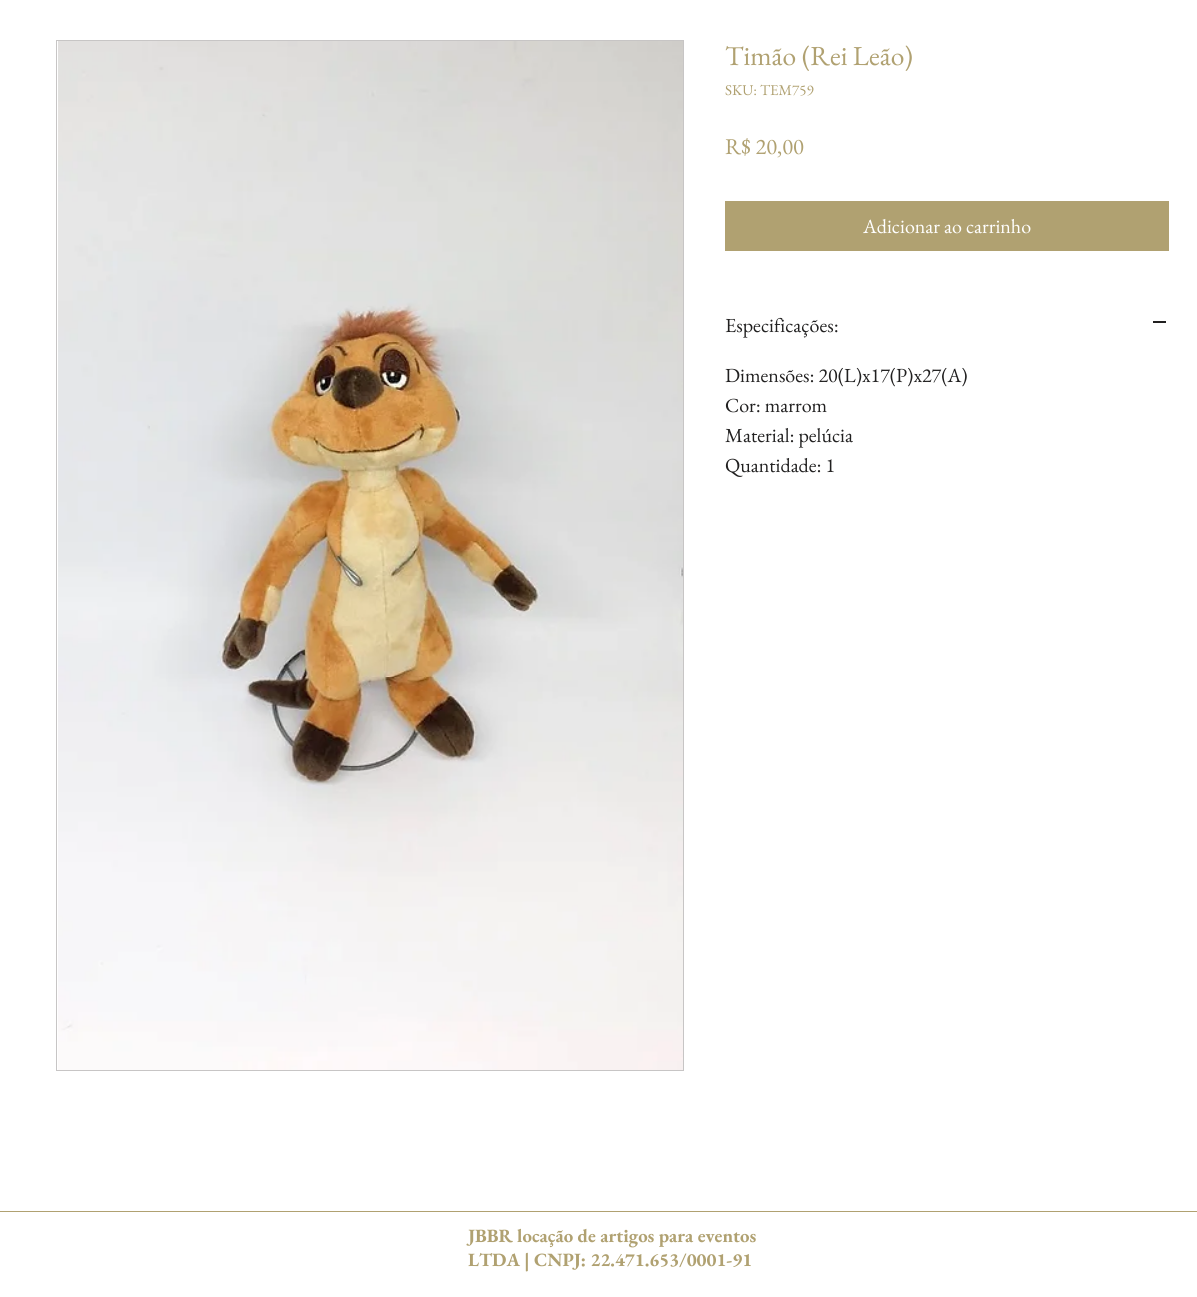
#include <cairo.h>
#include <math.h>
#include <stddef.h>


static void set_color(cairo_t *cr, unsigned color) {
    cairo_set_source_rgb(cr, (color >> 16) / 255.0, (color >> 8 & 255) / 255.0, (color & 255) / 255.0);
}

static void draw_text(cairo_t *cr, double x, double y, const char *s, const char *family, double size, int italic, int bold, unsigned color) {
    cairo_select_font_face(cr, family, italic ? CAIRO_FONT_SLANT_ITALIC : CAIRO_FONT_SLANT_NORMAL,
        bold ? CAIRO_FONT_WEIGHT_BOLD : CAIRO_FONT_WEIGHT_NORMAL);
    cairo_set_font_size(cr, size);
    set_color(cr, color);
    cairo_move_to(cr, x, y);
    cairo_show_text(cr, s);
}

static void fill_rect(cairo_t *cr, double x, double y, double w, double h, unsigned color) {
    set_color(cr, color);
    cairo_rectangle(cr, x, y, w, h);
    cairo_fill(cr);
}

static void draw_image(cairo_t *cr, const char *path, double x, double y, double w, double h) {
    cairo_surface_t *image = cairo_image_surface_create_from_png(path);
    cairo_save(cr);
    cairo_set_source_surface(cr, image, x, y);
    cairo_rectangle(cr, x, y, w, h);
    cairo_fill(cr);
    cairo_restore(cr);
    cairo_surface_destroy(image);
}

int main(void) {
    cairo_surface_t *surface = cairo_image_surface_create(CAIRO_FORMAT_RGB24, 1197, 1297);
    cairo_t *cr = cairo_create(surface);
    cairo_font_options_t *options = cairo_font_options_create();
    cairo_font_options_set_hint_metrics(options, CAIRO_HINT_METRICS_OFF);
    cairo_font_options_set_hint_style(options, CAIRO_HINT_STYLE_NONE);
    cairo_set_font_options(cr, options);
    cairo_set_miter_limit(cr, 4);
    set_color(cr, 0xFFFFFF);
    cairo_paint(cr);
    cairo_rectangle(cr, 56.5, 40.5, 627, 1030);
    set_color(cr, 0xC7C5C5);
    cairo_set_line_width(cr, 1);
    cairo_stroke(cr);
    draw_image(cr, "assets/img1.png", 58, 41, 625, 1029);
    draw_text(cr, 725, 65, "Timão (Rei Leão)", "EB Garamond", 27.5, 0, 0, 0xB0A171);
    draw_text(cr, 725, 95, "SKU: TEM759", "EB Garamond", 15, 0, 0, 0xB0A171);
    draw_text(cr, 725, 154, "R$ 20,00", "EB Garamond", 22.5, 0, 0, 0xB0A171);
    fill_rect(cr, 725, 201, 444, 50, 0xB0A171);
    draw_text(cr, 863, 233, "Adicionar ao carrinho", "EB Garamond", 20, 0, 0, 0xFFFFFF);
    draw_text(cr, 725, 332, "Especificações:", "EB Garamond", 20, 0, 0, 0x212020);
    fill_rect(cr, 1153, 321, 13, 2, 0x212020);
    draw_text(cr, 725, 382, "Dimensões: 20(L)x17(P)x27(A)", "EB Garamond", 20, 0, 0, 0x212020);
    draw_text(cr, 725, 412, "Cor: marrom", "EB Garamond", 20, 0, 0, 0x212020);
    draw_text(cr, 725, 442, "Material: pelúcia", "EB Garamond", 20, 0, 0, 0x212020);
    draw_text(cr, 725, 472, "Quantidade: 1", "EB Garamond", 20, 0, 0, 0x212020);
    fill_rect(cr, 0, 1211, 1197, 1, 0xB0A171);
    draw_text(cr, 468, 1242, "JBBR locação de artigos para eventos", "EB Garamond", 18.75, 0, 1, 0xB0A171);
    draw_text(cr, 468, 1266, "LTDA | CNPJ: 22.471.653/0001-91", "EB Garamond", 18.75, 0, 1, 0xB0A171);
    cairo_surface_write_to_png(surface, "output.png");
    cairo_font_options_destroy(options);
    cairo_destroy(cr);
    cairo_surface_destroy(surface);
    return 0;
}
